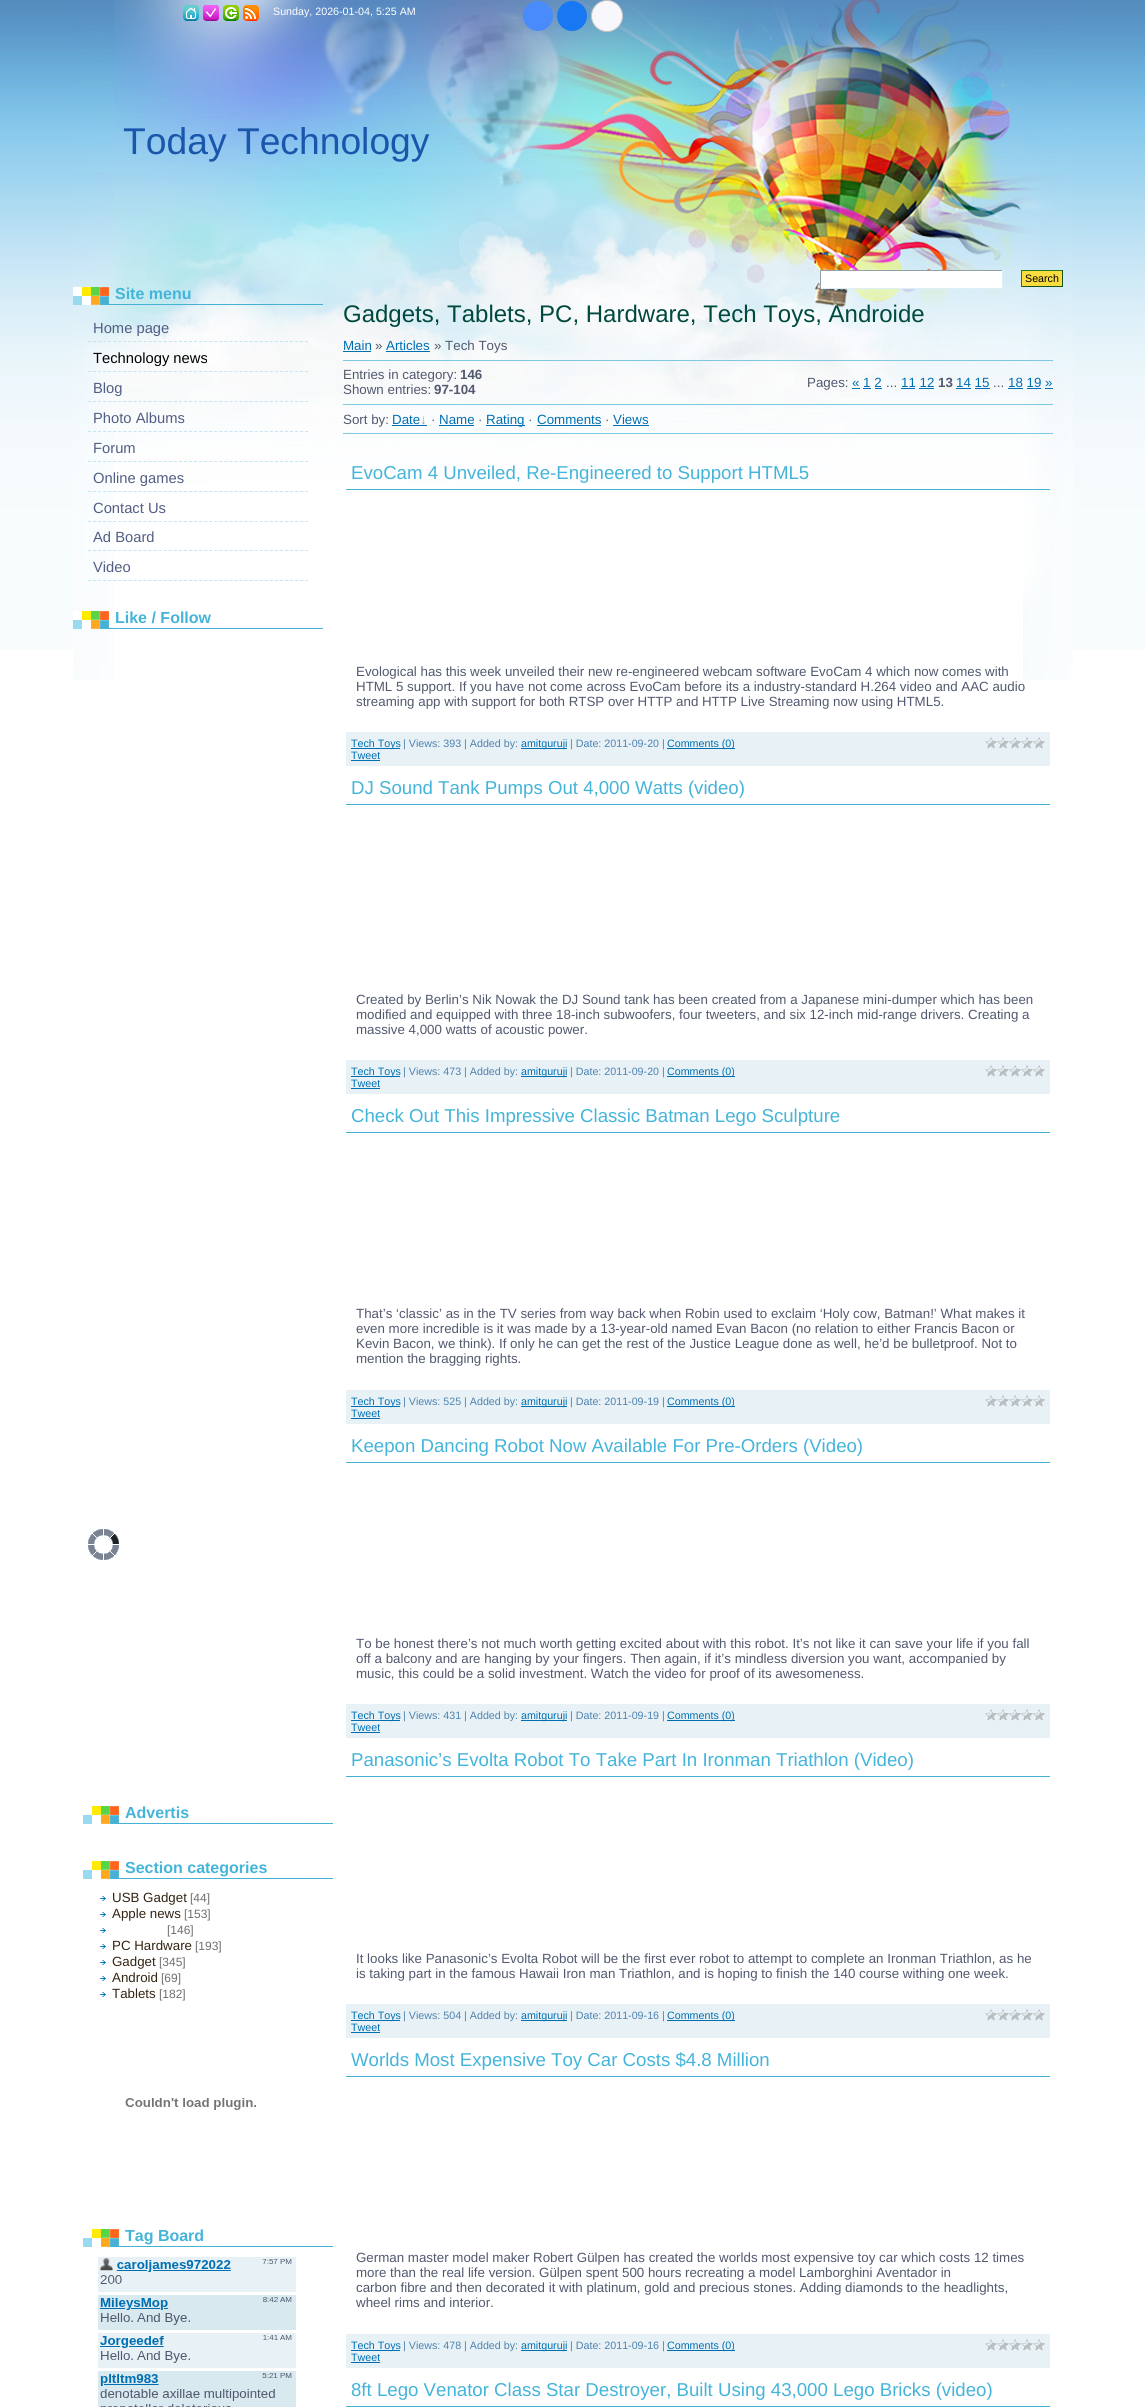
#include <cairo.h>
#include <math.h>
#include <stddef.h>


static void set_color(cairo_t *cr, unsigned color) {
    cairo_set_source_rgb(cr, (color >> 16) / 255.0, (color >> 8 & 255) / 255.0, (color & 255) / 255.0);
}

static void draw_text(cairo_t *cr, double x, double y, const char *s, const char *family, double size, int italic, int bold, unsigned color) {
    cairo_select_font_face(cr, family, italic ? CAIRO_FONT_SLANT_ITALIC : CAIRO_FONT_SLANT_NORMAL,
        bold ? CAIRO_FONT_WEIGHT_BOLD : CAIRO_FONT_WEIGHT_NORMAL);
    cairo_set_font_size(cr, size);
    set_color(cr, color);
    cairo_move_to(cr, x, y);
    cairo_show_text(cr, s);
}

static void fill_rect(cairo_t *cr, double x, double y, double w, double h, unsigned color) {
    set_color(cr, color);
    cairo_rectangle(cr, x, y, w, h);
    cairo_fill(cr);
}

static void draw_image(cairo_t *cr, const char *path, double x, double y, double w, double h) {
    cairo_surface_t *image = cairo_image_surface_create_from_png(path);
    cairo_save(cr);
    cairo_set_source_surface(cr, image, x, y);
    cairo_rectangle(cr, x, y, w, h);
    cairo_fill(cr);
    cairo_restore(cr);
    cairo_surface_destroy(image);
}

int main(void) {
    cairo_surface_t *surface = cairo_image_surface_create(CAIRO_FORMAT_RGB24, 1145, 2407);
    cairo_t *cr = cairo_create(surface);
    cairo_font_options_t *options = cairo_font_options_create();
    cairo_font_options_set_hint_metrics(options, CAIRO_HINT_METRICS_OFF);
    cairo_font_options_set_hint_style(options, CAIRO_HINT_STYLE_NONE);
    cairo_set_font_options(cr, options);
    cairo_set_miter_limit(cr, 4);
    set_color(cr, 0xFFFFFF);
    cairo_paint(cr);
    draw_image(cr, "assets/img1.png", 0, 0, 1145, 650);
    draw_image(cr, "assets/img2.png", 73, 0, 1000, 680);
    draw_image(cr, "assets/img3.png", 183, 5, 16, 16);
    draw_image(cr, "assets/img4.png", 203, 5, 16, 16);
    draw_image(cr, "assets/img5.png", 223, 5, 16, 16);
    draw_image(cr, "assets/img6.png", 243, 5, 16, 16);
    draw_text(cr, 273, 15, "Sunday, 2026-01-04, 5:25 AM", "Liberation Sans", 10.7, 0, 0, 0xFFFFFF);
    set_color(cr, 0x498BFA);
    cairo_new_path(cr);
    cairo_arc(cr, 538, 16, 15, 0, 2 * M_PI);
    cairo_fill(cr);
    set_color(cr, 0x1877F2);
    cairo_arc(cr, 572, 16, 15, 0, 2 * M_PI);
    cairo_fill(cr);
    set_color(cr, 0xF8F8FC);
    cairo_arc(cr, 607, 16, 15.5, 0, 2 * M_PI);
    cairo_fill_preserve(cr);
    set_color(cr, 0xC4C4C4);
    cairo_set_line_width(cr, 1);
    cairo_stroke(cr);
    draw_text(cr, 123, 154, "Today Technology", "Liberation Sans", 37.25, 0, 0, 0x1A56AC);
    fill_rect(cr, 821, 271, 181, 17, 0xFFFFFF);
    fill_rect(cr, 820, 270, 183, 1, 0x93A0A5);
    fill_rect(cr, 1002, 270, 1, 19, 0xDDF0F7);
    fill_rect(cr, 820, 288, 183, 1, 0xDDF0F7);
    fill_rect(cr, 820, 270, 1, 19, 0x93A0A5);
    fill_rect(cr, 1022, 271, 40, 15, 0xF9DC3D);
    fill_rect(cr, 1021, 270, 42, 1, 0x237C23);
    fill_rect(cr, 1062, 270, 1, 17, 0x175317);
    fill_rect(cr, 1021, 286, 42, 1, 0x175317);
    fill_rect(cr, 1021, 270, 1, 17, 0x237C23);
    draw_text(cr, 1025, 282, "Search", "Liberation Sans", 10.7, 0, 0, 0x000000);
    draw_image(cr, "assets/img7.png", 73, 287, 250, 18);
    draw_text(cr, 115, 299, "Site menu", "Liberation Sans", 16, 0, 1, 0x44B4DA);
    cairo_new_path(cr);
    cairo_move_to(cr, 88, 341.5);
    cairo_line_to(cr, 308, 341.5);
    set_color(cr, 0xC5E5F5);
    cairo_set_dash(cr, (double[]){3, 2.05}, 2, 0);
    cairo_stroke(cr);
    draw_text(cr, 93, 333, "Home page", "Liberation Sans", 14.75, 0, 0, 0x525E83);
    cairo_new_path(cr);
    cairo_move_to(cr, 88, 371.5);
    cairo_line_to(cr, 308, 371.5);
    set_color(cr, 0xC5E5F5);
    cairo_stroke(cr);
    draw_text(cr, 93, 363, "Technology news", "Liberation Sans", 14.75, 0, 0, 0x000000);
    cairo_new_path(cr);
    cairo_move_to(cr, 88, 401.5);
    cairo_line_to(cr, 308, 401.5);
    set_color(cr, 0xC5E5F5);
    cairo_stroke(cr);
    draw_text(cr, 93, 393, "Blog", "Liberation Sans", 14.75, 0, 0, 0x525E83);
    cairo_new_path(cr);
    cairo_move_to(cr, 88, 431.5);
    cairo_line_to(cr, 308, 431.5);
    set_color(cr, 0xC5E5F5);
    cairo_stroke(cr);
    draw_text(cr, 93, 423, "Photo Albums", "Liberation Sans", 14.75, 0, 0, 0x525E83);
    cairo_new_path(cr);
    cairo_move_to(cr, 88, 461.5);
    cairo_line_to(cr, 308, 461.5);
    set_color(cr, 0xC5E5F5);
    cairo_stroke(cr);
    draw_text(cr, 93, 453, "Forum", "Liberation Sans", 14.75, 0, 0, 0x525E83);
    cairo_new_path(cr);
    cairo_move_to(cr, 88, 491.5);
    cairo_line_to(cr, 308, 491.5);
    set_color(cr, 0xC5E5F5);
    cairo_stroke(cr);
    draw_text(cr, 93, 483, "Online games", "Liberation Sans", 14.75, 0, 0, 0x525E83);
    cairo_new_path(cr);
    cairo_move_to(cr, 88, 521.5);
    cairo_line_to(cr, 308, 521.5);
    set_color(cr, 0xC5E5F5);
    cairo_stroke(cr);
    draw_text(cr, 93, 513, "Contact Us", "Liberation Sans", 14.75, 0, 0, 0x525E83);
    cairo_new_path(cr);
    cairo_move_to(cr, 88, 550.5);
    cairo_line_to(cr, 308, 550.5);
    set_color(cr, 0xC5E5F5);
    cairo_stroke(cr);
    draw_text(cr, 93, 542, "Ad Board", "Liberation Sans", 14.75, 0, 0, 0x525E83);
    cairo_new_path(cr);
    cairo_move_to(cr, 88, 580.5);
    cairo_line_to(cr, 308, 580.5);
    set_color(cr, 0xC5E5F5);
    cairo_stroke(cr);
    draw_text(cr, 93, 572, "Video", "Liberation Sans", 14.75, 0, 0, 0x525E83);
    draw_image(cr, "assets/img8.png", 73, 611, 250, 18);
    draw_text(cr, 115, 623, "Like / Follow", "Liberation Sans", 16, 0, 1, 0x44B4DA);
    draw_image(cr, "assets/img9.png", 88, 1529, 31, 31);
    draw_image(cr, "assets/img10.png", 83, 1806, 250, 18);
    draw_text(cr, 125, 1818, "Advertis", "Liberation Sans", 16, 0, 1, 0x44B4DA);
    draw_image(cr, "assets/img10.png", 83, 1861, 250, 18);
    draw_text(cr, 125, 1873, "Section categories", "Liberation Sans", 16, 0, 1, 0x44B4DA);
    draw_image(cr, "assets/img11.png", 100, 1896, 6, 5);
    draw_text(cr, 112, 1902, "USB Gadget", "Liberation Sans", 13.33, 0, 0, 0x332414);
    draw_text(cr, 190, 1902, "[44]", "Liberation Sans", 12, 0, 0, 0x6E6E6E);
    draw_image(cr, "assets/img11.png", 100, 1912, 6, 5);
    draw_text(cr, 112, 1918, "Apple news", "Liberation Sans", 13.33, 0, 0, 0x332414);
    draw_text(cr, 184, 1918, "[153]", "Liberation Sans", 12, 0, 0, 0x6E6E6E);
    draw_image(cr, "assets/img11.png", 100, 1928, 6, 5);
    draw_text(cr, 167, 1934, "[146]", "Liberation Sans", 12, 0, 0, 0x6E6E6E);
    draw_image(cr, "assets/img11.png", 100, 1944, 6, 5);
    draw_text(cr, 112, 1950, "PC Hardware", "Liberation Sans", 13.33, 0, 0, 0x332414);
    draw_text(cr, 195, 1950, "[193]", "Liberation Sans", 12, 0, 0, 0x6E6E6E);
    draw_image(cr, "assets/img11.png", 100, 1960, 6, 5);
    draw_text(cr, 112, 1966, "Gadget", "Liberation Sans", 13.33, 0, 0, 0x332414);
    draw_text(cr, 159, 1966, "[345]", "Liberation Sans", 12, 0, 0, 0x6E6E6E);
    draw_image(cr, "assets/img11.png", 100, 1976, 6, 5);
    draw_text(cr, 112, 1982, "Android", "Liberation Sans", 13.33, 0, 0, 0x332414);
    draw_text(cr, 161, 1982, "[69]", "Liberation Sans", 12, 0, 0, 0x6E6E6E);
    draw_image(cr, "assets/img11.png", 100, 1992, 6, 5);
    draw_text(cr, 112, 1998, "Tablets", "Liberation Sans", 13.33, 0, 0, 0x332414);
    draw_text(cr, 159, 1998, "[182]", "Liberation Sans", 12, 0, 0, 0x6E6E6E);
    draw_image(cr, "assets/img12.png", 125, 2098, 131, 12);
    draw_image(cr, "assets/img10.png", 83, 2229, 250, 18);
    draw_text(cr, 125, 2241, "Tag Board", "Liberation Sans", 16, 0, 1, 0x44B4DA);
    draw_image(cr, "assets/img13.png", 98, 2257, 198, 150);
    draw_text(cr, 343, 322, "Gadgets, Tablets, PC, Hardware, Tech Toys, Androide", "Liberation Sans", 24, 0, 0, 0x00493E);
    draw_text(cr, 343, 350, "Main", "Liberation Sans", 13.33, 0, 0, 0x006FB2);
    fill_rect(cr, 343, 351, 28, 1, 0x006FB2);
    draw_text(cr, 375, 350, "»", "Liberation Sans", 13.33, 0, 0, 0x52596F);
    draw_text(cr, 386, 350, "Articles", "Liberation Sans", 13.33, 0, 0, 0x006FB2);
    fill_rect(cr, 386, 351, 44, 1, 0x006FB2);
    draw_text(cr, 434, 350, "» Tech Toys", "Liberation Sans", 13.33, 0, 0, 0x52596F);
    fill_rect(cr, 343, 360, 710, 1, 0x7EC8E3);
    draw_text(cr, 343, 379, "Entries in category:", "Liberation Sans", 13.33, 0, 0, 0x52596F);
    draw_text(cr, 460, 379, "146", "Liberation Sans", 13.33, 0, 1, 0x52596F);
    draw_text(cr, 343, 394, "Shown entries:", "Liberation Sans", 13.33, 0, 0, 0x52596F);
    draw_text(cr, 434, 394, "97-104", "Liberation Sans", 13.33, 0, 1, 0x52596F);
    draw_text(cr, 807, 387, "Pages:", "Liberation Sans", 13.33, 0, 0, 0x52596F);
    draw_text(cr, 852, 387, "« 1 2", "Liberation Sans", 13.33, 0, 0, 0x006FB2);
    fill_rect(cr, 852, 388, 8, 1, 0x006FB2);
    fill_rect(cr, 863, 388, 8, 1, 0x006FB2);
    draw_text(cr, 886, 387, "...", "Liberation Sans", 13.33, 0, 0, 0x52596F);
    fill_rect(cr, 875, 388, 7, 1, 0x006FB2);
    fill_rect(cr, 901, 388, 14, 1, 0x006FB2);
    draw_text(cr, 901, 387, "11 12", "Liberation Sans", 13.33, 0, 0, 0x006FB2);
    fill_rect(cr, 919, 388, 15, 1, 0x006FB2);
    draw_text(cr, 938, 387, "13", "Liberation Sans", 13.33, 0, 1, 0x52596F);
    draw_text(cr, 956, 387, "14 15", "Liberation Sans", 13.33, 0, 0, 0x006FB2);
    fill_rect(cr, 956, 388, 15, 1, 0x006FB2);
    draw_text(cr, 993, 387, "...", "Liberation Sans", 13.33, 0, 0, 0x52596F);
    fill_rect(cr, 975, 388, 15, 1, 0x006FB2);
    fill_rect(cr, 1008, 388, 15, 1, 0x006FB2);
    draw_text(cr, 1008, 387, "18 19 »", "Liberation Sans", 13.33, 0, 0, 0x006FB2);
    fill_rect(cr, 1027, 388, 14, 1, 0x006FB2);
    fill_rect(cr, 1045, 388, 8, 1, 0x006FB2);
    fill_rect(cr, 343, 404, 710, 1, 0x7EC8E3);
    draw_text(cr, 343, 424, "Sort by:", "Liberation Sans", 13.33, 0, 0, 0x52596F);
    draw_text(cr, 392, 424, "Date", "Liberation Sans", 13.33, 0, 0, 0x006FB2);
    draw_text(cr, 420, 424, "↓", "Liberation Sans", 13.33, 0, 0, 0x9F9FA0);
    fill_rect(cr, 392, 425, 35, 1, 0x006FB2);
    draw_text(cr, 431, 424, "·", "Liberation Sans", 13.33, 0, 0, 0x52596F);
    draw_text(cr, 439, 424, "Name", "Liberation Sans", 13.33, 0, 0, 0x006FB2);
    fill_rect(cr, 439, 425, 35, 1, 0x006FB2);
    draw_text(cr, 478, 424, "·", "Liberation Sans", 13.33, 0, 0, 0x52596F);
    fill_rect(cr, 486, 425, 39, 1, 0x006FB2);
    draw_text(cr, 486, 424, "Rating", "Liberation Sans", 13.33, 0, 0, 0x006FB2);
    draw_text(cr, 528, 424, "·", "Liberation Sans", 13.33, 0, 0, 0x52596F);
    draw_text(cr, 537, 424, "Comments", "Liberation Sans", 13.33, 0, 0, 0x006FB2);
    fill_rect(cr, 537, 425, 64, 1, 0x006FB2);
    draw_text(cr, 605, 424, "·", "Liberation Sans", 13.33, 0, 0, 0x52596F);
    draw_text(cr, 613, 424, "Views", "Liberation Sans", 13.33, 0, 0, 0x006FB2);
    fill_rect(cr, 613, 425, 36, 1, 0x006FB2);
    fill_rect(cr, 343, 433, 710, 1, 0x7EC8E3);
    fill_rect(cr, 346, 489, 704, 1, 0x46B1D5);
    draw_text(cr, 351, 479, "EvoCam 4 Unveiled, Re-Engineered to Support HTML5", "Liberation Sans", 18.65, 0, 0, 0x44B4DA);
    draw_text(cr, 356, 676, "Evological has this week unveiled their new re-engineered webcam software EvoCam 4 which now comes with", "Liberation Sans", 13.33, 0, 0, 0x52596F);
    draw_text(cr, 356, 691, "HTML 5 support. If you have not come across EvoCam before its a industry-standard H.264 video and AAC audio", "Liberation Sans", 13.33, 0, 0, 0x52596F);
    draw_text(cr, 356, 706, "streaming app with support for both RTSP over HTTP and HTTP Live Streaming now using HTML5.", "Liberation Sans", 13.33, 0, 0, 0x52596F);
    fill_rect(cr, 346, 732, 704, 34, 0xE8F2F6);
    fill_rect(cr, 351, 748, 49, 1, 0x006FB2);
    draw_text(cr, 351, 747, "Tech Toys", "Liberation Sans", 10.7, 0, 0, 0x006FB2);
    draw_text(cr, 403, 747, "| Views: 393 | Added by:", "Liberation Sans", 10.7, 0, 0, 0x4E81AF);
    fill_rect(cr, 521, 748, 46, 1, 0x006FB2);
    draw_text(cr, 521, 747, "amitguruji", "Liberation Sans", 10.7, 0, 0, 0x006FB2);
    draw_text(cr, 570, 747, "| Date: 2011-09-20 |", "Liberation Sans", 10.7, 0, 0, 0x4E81AF);
    fill_rect(cr, 667, 748, 68, 1, 0x006FB2);
    draw_text(cr, 667, 747, "Comments (0)", "Liberation Sans", 10.7, 0, 0, 0x006FB2);
    draw_image(cr, "assets/img14.png", 985, 737, 60, 12);
    draw_text(cr, 351, 759, "Tweet", "Liberation Sans", 10.7, 0, 0, 0x006FB2);
    fill_rect(cr, 351, 760, 29, 1, 0x006FB2);
    fill_rect(cr, 346, 804, 704, 1, 0x46B1D5);
    draw_text(cr, 351, 794, "DJ Sound Tank Pumps Out 4,000 Watts (video)", "Liberation Sans", 18.65, 0, 0, 0x44B4DA);
    draw_text(cr, 356, 1004, "Created by Berlin’s Nik Nowak the DJ Sound tank has been created from a Japanese mini-dumper which has been", "Liberation Sans", 13.33, 0, 0, 0x52596F);
    draw_text(cr, 356, 1019, "modified and equipped with three 18-inch subwoofers, four tweeters, and six 12-inch mid-range drivers. Creating a", "Liberation Sans", 13.33, 0, 0, 0x52596F);
    draw_text(cr, 356, 1034, "massive 4,000 watts of acoustic power.", "Liberation Sans", 13.33, 0, 0, 0x52596F);
    fill_rect(cr, 346, 1060, 704, 34, 0xE8F2F6);
    fill_rect(cr, 351, 1076, 49, 1, 0x006FB2);
    draw_text(cr, 351, 1075, "Tech Toys", "Liberation Sans", 10.7, 0, 0, 0x006FB2);
    draw_text(cr, 403, 1075, "| Views: 473 | Added by:", "Liberation Sans", 10.7, 0, 0, 0x4E81AF);
    fill_rect(cr, 521, 1076, 46, 1, 0x006FB2);
    draw_text(cr, 521, 1075, "amitguruji", "Liberation Sans", 10.7, 0, 0, 0x006FB2);
    draw_text(cr, 570, 1075, "| Date: 2011-09-20 |", "Liberation Sans", 10.7, 0, 0, 0x4E81AF);
    fill_rect(cr, 667, 1076, 68, 1, 0x006FB2);
    draw_text(cr, 667, 1075, "Comments (0)", "Liberation Sans", 10.7, 0, 0, 0x006FB2);
    draw_image(cr, "assets/img14.png", 985, 1065, 60, 12);
    draw_text(cr, 351, 1087, "Tweet", "Liberation Sans", 10.7, 0, 0, 0x006FB2);
    fill_rect(cr, 351, 1088, 29, 1, 0x006FB2);
    fill_rect(cr, 346, 1132, 704, 1, 0x46B1D5);
    draw_text(cr, 351, 1122, "Check Out This Impressive Classic Batman Lego Sculpture", "Liberation Sans", 18.65, 0, 0, 0x44B4DA);
    draw_text(cr, 356, 1318, "That’s ‘classic’ as in the TV series from way back when Robin used to exclaim ‘Holy cow, Batman!’ What makes it", "Liberation Sans", 13.33, 0, 0, 0x52596F);
    draw_text(cr, 356, 1333, "even more incredible is it was made by a 13-year-old named Evan Bacon (no relation to either Francis Bacon or", "Liberation Sans", 13.33, 0, 0, 0x52596F);
    draw_text(cr, 356, 1348, "Kevin Bacon, we think). If only he can get the rest of the Justice League done as well, he’d be bulletproof. Not to", "Liberation Sans", 13.33, 0, 0, 0x52596F);
    draw_text(cr, 356, 1363, "mention the bragging rights.", "Liberation Sans", 13.33, 0, 0, 0x52596F);
    fill_rect(cr, 346, 1390, 704, 34, 0xE8F2F6);
    fill_rect(cr, 351, 1406, 49, 1, 0x006FB2);
    draw_text(cr, 351, 1405, "Tech Toys", "Liberation Sans", 10.7, 0, 0, 0x006FB2);
    draw_text(cr, 403, 1405, "| Views: 525 | Added by:", "Liberation Sans", 10.7, 0, 0, 0x4E81AF);
    fill_rect(cr, 521, 1406, 46, 1, 0x006FB2);
    draw_text(cr, 521, 1405, "amitguruji", "Liberation Sans", 10.7, 0, 0, 0x006FB2);
    draw_text(cr, 570, 1405, "| Date: 2011-09-19 |", "Liberation Sans", 10.7, 0, 0, 0x4E81AF);
    fill_rect(cr, 667, 1406, 68, 1, 0x006FB2);
    draw_text(cr, 667, 1405, "Comments (0)", "Liberation Sans", 10.7, 0, 0, 0x006FB2);
    draw_image(cr, "assets/img14.png", 985, 1395, 60, 12);
    draw_text(cr, 351, 1417, "Tweet", "Liberation Sans", 10.7, 0, 0, 0x006FB2);
    fill_rect(cr, 351, 1418, 29, 1, 0x006FB2);
    fill_rect(cr, 346, 1462, 704, 1, 0x46B1D5);
    draw_text(cr, 351, 1452, "Keepon Dancing Robot Now Available For Pre-Orders (Video)", "Liberation Sans", 18.65, 0, 0, 0x44B4DA);
    draw_text(cr, 356, 1648, "To be honest there’s not much worth getting excited about with this robot. It’s not like it can save your life if you fall", "Liberation Sans", 13.33, 0, 0, 0x52596F);
    draw_text(cr, 356, 1663, "off a balcony and are hanging by your fingers. Then again, if it’s mindless diversion you want, accompanied by", "Liberation Sans", 13.33, 0, 0, 0x52596F);
    draw_text(cr, 356, 1678, "music, this could be a solid investment. Watch the video for proof of its awesomeness.", "Liberation Sans", 13.33, 0, 0, 0x52596F);
    fill_rect(cr, 346, 1704, 704, 34, 0xE8F2F6);
    fill_rect(cr, 351, 1720, 49, 1, 0x006FB2);
    draw_text(cr, 351, 1719, "Tech Toys", "Liberation Sans", 10.7, 0, 0, 0x006FB2);
    draw_text(cr, 403, 1719, "| Views: 431 | Added by:", "Liberation Sans", 10.7, 0, 0, 0x4E81AF);
    fill_rect(cr, 521, 1720, 46, 1, 0x006FB2);
    draw_text(cr, 521, 1719, "amitguruji", "Liberation Sans", 10.7, 0, 0, 0x006FB2);
    draw_text(cr, 570, 1719, "| Date: 2011-09-19 |", "Liberation Sans", 10.7, 0, 0, 0x4E81AF);
    fill_rect(cr, 667, 1720, 68, 1, 0x006FB2);
    draw_text(cr, 667, 1719, "Comments (0)", "Liberation Sans", 10.7, 0, 0, 0x006FB2);
    draw_image(cr, "assets/img14.png", 985, 1709, 60, 12);
    draw_text(cr, 351, 1731, "Tweet", "Liberation Sans", 10.7, 0, 0, 0x006FB2);
    fill_rect(cr, 351, 1732, 29, 1, 0x006FB2);
    fill_rect(cr, 346, 1776, 704, 1, 0x46B1D5);
    draw_text(cr, 351, 1766, "Panasonic’s Evolta Robot To Take Part In Ironman Triathlon (Video)", "Liberation Sans", 18.65, 0, 0, 0x44B4DA);
    draw_text(cr, 356, 1963, "It looks like Panasonic’s Evolta Robot will be the first ever robot to attempt to complete an Ironman Triathlon, as he", "Liberation Sans", 13.33, 0, 0, 0x52596F);
    draw_text(cr, 356, 1978, "is taking part in the famous Hawaii Iron man Triathlon, and is hoping to finish the 140 course withing one week.", "Liberation Sans", 13.33, 0, 0, 0x52596F);
    fill_rect(cr, 346, 2004, 704, 34, 0xE8F2F6);
    fill_rect(cr, 351, 2020, 49, 1, 0x006FB2);
    draw_text(cr, 351, 2019, "Tech Toys", "Liberation Sans", 10.7, 0, 0, 0x006FB2);
    draw_text(cr, 403, 2019, "| Views: 504 | Added by:", "Liberation Sans", 10.7, 0, 0, 0x4E81AF);
    fill_rect(cr, 521, 2020, 46, 1, 0x006FB2);
    draw_text(cr, 521, 2019, "amitguruji", "Liberation Sans", 10.7, 0, 0, 0x006FB2);
    draw_text(cr, 570, 2019, "| Date: 2011-09-16 |", "Liberation Sans", 10.7, 0, 0, 0x4E81AF);
    fill_rect(cr, 667, 2020, 68, 1, 0x006FB2);
    draw_text(cr, 667, 2019, "Comments (0)", "Liberation Sans", 10.7, 0, 0, 0x006FB2);
    draw_image(cr, "assets/img14.png", 985, 2009, 60, 12);
    draw_text(cr, 351, 2031, "Tweet", "Liberation Sans", 10.7, 0, 0, 0x006FB2);
    fill_rect(cr, 351, 2032, 29, 1, 0x006FB2);
    fill_rect(cr, 346, 2076, 704, 1, 0x46B1D5);
    draw_text(cr, 351, 2066, "Worlds Most Expensive Toy Car Costs $4.8 Million", "Liberation Sans", 18.65, 0, 0, 0x44B4DA);
    draw_text(cr, 356, 2262, "German master model maker Robert Gülpen has created the worlds most expensive toy car which costs 12 times", "Liberation Sans", 13.33, 0, 0, 0x52596F);
    draw_text(cr, 356, 2277, "more than the real life version. Gülpen spent 500 hours recreating a model Lamborghini Aventador in", "Liberation Sans", 13.33, 0, 0, 0x52596F);
    draw_text(cr, 356, 2292, "carbon fibre and then decorated it with platinum, gold and precious stones. Adding diamonds to the headlights,", "Liberation Sans", 13.33, 0, 0, 0x52596F);
    draw_text(cr, 356, 2307, "wheel rims and interior.", "Liberation Sans", 13.33, 0, 0, 0x52596F);
    fill_rect(cr, 346, 2334, 704, 34, 0xE8F2F6);
    fill_rect(cr, 351, 2350, 49, 1, 0x006FB2);
    draw_text(cr, 351, 2349, "Tech Toys", "Liberation Sans", 10.7, 0, 0, 0x006FB2);
    draw_text(cr, 403, 2349, "| Views: 478 | Added by:", "Liberation Sans", 10.7, 0, 0, 0x4E81AF);
    fill_rect(cr, 521, 2350, 46, 1, 0x006FB2);
    draw_text(cr, 521, 2349, "amitguruji", "Liberation Sans", 10.7, 0, 0, 0x006FB2);
    draw_text(cr, 570, 2349, "| Date: 2011-09-16 |", "Liberation Sans", 10.7, 0, 0, 0x4E81AF);
    fill_rect(cr, 667, 2350, 68, 1, 0x006FB2);
    draw_text(cr, 667, 2349, "Comments (0)", "Liberation Sans", 10.7, 0, 0, 0x006FB2);
    draw_image(cr, "assets/img14.png", 985, 2339, 60, 12);
    draw_text(cr, 351, 2361, "Tweet", "Liberation Sans", 10.7, 0, 0, 0x006FB2);
    fill_rect(cr, 351, 2362, 29, 1, 0x006FB2);
    fill_rect(cr, 346, 2406, 704, 1, 0x46B1D5);
    draw_text(cr, 351, 2396, "8ft Lego Venator Class Star Destroyer, Built Using 43,000 Lego Bricks (video)", "Liberation Sans", 18.65, 0, 0, 0x44B4DA);
    cairo_surface_write_to_png(surface, "output.png");
    cairo_font_options_destroy(options);
    cairo_destroy(cr);
    cairo_surface_destroy(surface);
    return 0;
}
